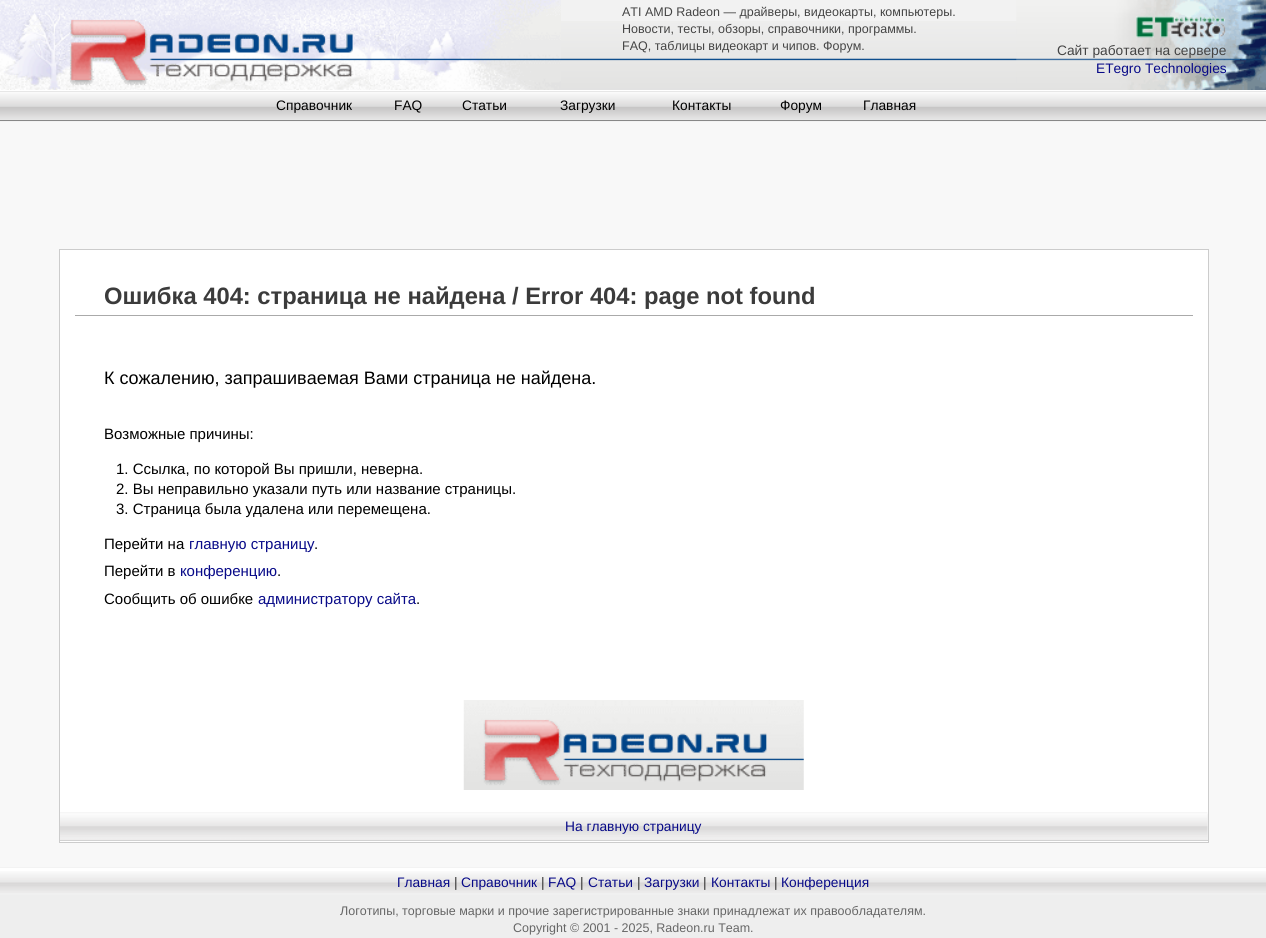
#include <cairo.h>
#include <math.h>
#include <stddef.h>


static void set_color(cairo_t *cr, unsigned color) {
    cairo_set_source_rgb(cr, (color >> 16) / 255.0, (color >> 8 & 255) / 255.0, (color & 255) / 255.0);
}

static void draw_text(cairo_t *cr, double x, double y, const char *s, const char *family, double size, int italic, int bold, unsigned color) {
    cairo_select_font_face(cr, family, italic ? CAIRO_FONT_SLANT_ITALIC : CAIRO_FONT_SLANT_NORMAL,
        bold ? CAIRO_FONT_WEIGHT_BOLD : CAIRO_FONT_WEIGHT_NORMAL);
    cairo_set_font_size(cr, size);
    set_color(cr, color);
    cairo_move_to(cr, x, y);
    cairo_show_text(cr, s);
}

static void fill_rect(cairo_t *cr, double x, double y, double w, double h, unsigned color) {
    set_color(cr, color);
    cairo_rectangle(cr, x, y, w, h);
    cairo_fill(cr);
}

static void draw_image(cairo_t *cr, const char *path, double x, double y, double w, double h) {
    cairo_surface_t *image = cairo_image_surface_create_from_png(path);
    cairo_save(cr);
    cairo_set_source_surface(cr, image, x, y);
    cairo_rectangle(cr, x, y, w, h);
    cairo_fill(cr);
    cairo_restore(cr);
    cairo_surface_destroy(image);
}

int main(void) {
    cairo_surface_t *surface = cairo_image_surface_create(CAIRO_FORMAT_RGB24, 1266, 938);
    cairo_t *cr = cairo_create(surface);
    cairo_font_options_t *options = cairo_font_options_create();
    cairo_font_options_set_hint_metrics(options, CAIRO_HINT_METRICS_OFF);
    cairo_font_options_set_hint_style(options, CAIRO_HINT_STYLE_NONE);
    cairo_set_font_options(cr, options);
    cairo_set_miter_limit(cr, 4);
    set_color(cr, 0xF8F8F8);
    cairo_paint(cr);
    fill_rect(cr, 561, 0, 456, 21, 0xF2F2F2);
    draw_image(cr, "assets/img1.png", 561, 21, 456, 69);
    draw_image(cr, "assets/img2.png", 0, 0, 561, 90);
    draw_text(cr, 622, 16, "ATI AMD Radeon — драйверы, видеокарты, компьютеры.", "Liberation Sans", 12.5, 0, 0, 0x444444);
    draw_text(cr, 622, 33, "Новости, тесты, обзоры, справочники, программы.", "Liberation Sans", 12.5, 0, 0, 0x444444);
    draw_text(cr, 622, 50, "FAQ, таблицы видеокарт и чипов. Форум.", "Liberation Sans", 12.5, 0, 0, 0x444444);
    draw_image(cr, "assets/img3.png", 1016, 0, 250, 90);
    draw_image(cr, "assets/img4.png", 1136, 16, 90, 22);
    draw_text(cr, 1057, 55, "Сайт работает на сервере", "Liberation Sans", 13.75, 0, 0, 0x444444);
    draw_text(cr, 1096, 73, "ETegro Technologies", "Liberation Sans", 13.75, 0, 0, 0x080A88);
    draw_image(cr, "assets/img5.png", 0, 91, 1266, 31);
    fill_rect(cr, 0, 90, 1266, 1, 0xFFFFFF);
    fill_rect(cr, 0, 120, 1266, 1, 0x888888);
    draw_text(cr, 276, 110, "Справочник", "Liberation Sans", 13.75, 0, 0, 0x000000);
    draw_text(cr, 394, 110, "FAQ", "Liberation Sans", 13.75, 0, 0, 0x000000);
    draw_text(cr, 462, 110, "Статьи", "Liberation Sans", 13.75, 0, 0, 0x000000);
    draw_text(cr, 560, 110, "Загрузки", "Liberation Sans", 13.75, 0, 0, 0x000000);
    draw_text(cr, 672, 110, "Контакты", "Liberation Sans", 13.75, 0, 0, 0x000000);
    draw_text(cr, 780, 110, "Форум", "Liberation Sans", 13.75, 0, 0, 0x000000);
    draw_text(cr, 863, 110, "Главная", "Liberation Sans", 13.75, 0, 0, 0x000000);
    set_color(cr, 0xFFFFFF);
    cairo_rectangle(cr, 59.5, 249.5, 1149, 593);
    cairo_fill_preserve(cr);
    set_color(cr, 0xCCCCCC);
    cairo_set_line_width(cr, 1);
    cairo_stroke(cr);
    fill_rect(cr, 75, 315, 1118, 1, 0xAAAAAA);
    draw_text(cr, 104, 304, "Ошибка 404: страница не найдена / Error 404: page not found", "Liberation Sans", 23.75, 0, 1, 0x3B3B3B);
    draw_text(cr, 104, 384, "К сожалению, запрашиваемая Вами страница не найдена.", "Liberation Sans", 18, 0, 0, 0x000000);
    draw_text(cr, 104, 439, "Возможные причины:", "Liberation Sans", 15, 0, 0, 0x000000);
    draw_text(cr, 116, 474, "1. Ссылка, по которой Вы пришли, неверна.", "Liberation Sans", 15, 0, 0, 0x000000);
    draw_text(cr, 116, 494, "2. Вы неправильно указали путь или название страницы.", "Liberation Sans", 15, 0, 0, 0x000000);
    draw_text(cr, 116, 514, "3. Страница была удалена или перемещена.", "Liberation Sans", 15, 0, 0, 0x000000);
    draw_text(cr, 104, 549, "Перейти на", "Liberation Sans", 15, 0, 0, 0x000000);
    draw_text(cr, 189, 549, "главную страницу", "Liberation Sans", 15, 0, 0, 0x080A88);
    draw_text(cr, 314, 549, ".", "Liberation Sans", 15, 0, 0, 0x000000);
    draw_text(cr, 104, 576, "Перейти в", "Liberation Sans", 15, 0, 0, 0x000000);
    draw_text(cr, 180, 576, "конференцию", "Liberation Sans", 15, 0, 0, 0x080A88);
    draw_text(cr, 277, 576, ".", "Liberation Sans", 15, 0, 0, 0x000000);
    draw_text(cr, 104, 604, "Сообщить об ошибке", "Liberation Sans", 15, 0, 0, 0x000000);
    draw_text(cr, 258, 604, "администратору сайта", "Liberation Sans", 15, 0, 0, 0x080A88);
    draw_text(cr, 416, 604, ".", "Liberation Sans", 15, 0, 0, 0x000000);
    draw_image(cr, "assets/img6.png", 463, 700, 341, 90);
    fill_rect(cr, 1207, 814, 1, 26, 0xF0F0F0);
    draw_image(cr, "assets/img7.png", 60, 812, 1148, 28);
    fill_rect(cr, 60, 813, 1148, 1, 0xFAFAFA);
    fill_rect(cr, 60, 840, 1148, 1, 0xD2D2D2);
    draw_text(cr, 565, 831, "На главную страницу", "Liberation Sans", 13.75, 0, 0, 0x080A88);
    fill_rect(cr, 0, 893, 1266, 2, 0xF0F0F0);
    draw_image(cr, "assets/img8.png", 0, 867, 1266, 26);
    fill_rect(cr, 0, 868, 1266, 3, 0xFFFFFF);
    draw_text(cr, 397, 887, "Главная", "Liberation Sans", 13.75, 0, 0, 0x080A88);
    draw_text(cr, 454, 887, "|", "Liberation Sans", 13.75, 0, 0, 0x333333);
    draw_text(cr, 461, 887, "Справочник", "Liberation Sans", 13.75, 0, 0, 0x080A88);
    draw_text(cr, 541, 887, "|", "Liberation Sans", 13.75, 0, 0, 0x333333);
    draw_text(cr, 548, 887, "FAQ", "Liberation Sans", 13.75, 0, 0, 0x080A88);
    draw_text(cr, 580, 887, "|", "Liberation Sans", 13.75, 0, 0, 0x333333);
    draw_text(cr, 588, 887, "Статьи", "Liberation Sans", 13.75, 0, 0, 0x080A88);
    draw_text(cr, 637, 887, "|", "Liberation Sans", 13.75, 0, 0, 0x333333);
    draw_text(cr, 644, 887, "Загрузки", "Liberation Sans", 13.75, 0, 0, 0x080A88);
    draw_text(cr, 703, 887, "|", "Liberation Sans", 13.75, 0, 0, 0x333333);
    draw_text(cr, 711, 887, "Контакты", "Liberation Sans", 13.75, 0, 0, 0x080A88);
    draw_text(cr, 774, 887, "|", "Liberation Sans", 13.75, 0, 0, 0x333333);
    draw_text(cr, 781, 887, "Конференция", "Liberation Sans", 13.75, 0, 0, 0x080A88);
    fill_rect(cr, 0, 895, 1266, 43, 0xEEEEEE);
    draw_text(cr, 340, 915, "Логотипы, торговые марки и прочие зарегистрированные знаки принадлежат их правообладателям.", "Liberation Sans", 12.5, 0, 0, 0x666666);
    draw_text(cr, 513, 932, "Copyright © 2001 - 2025, Radeon.ru Team.", "Liberation Sans", 12.5, 0, 0, 0x666666);
    cairo_surface_write_to_png(surface, "output.png");
    cairo_font_options_destroy(options);
    cairo_destroy(cr);
    cairo_surface_destroy(surface);
    return 0;
}
